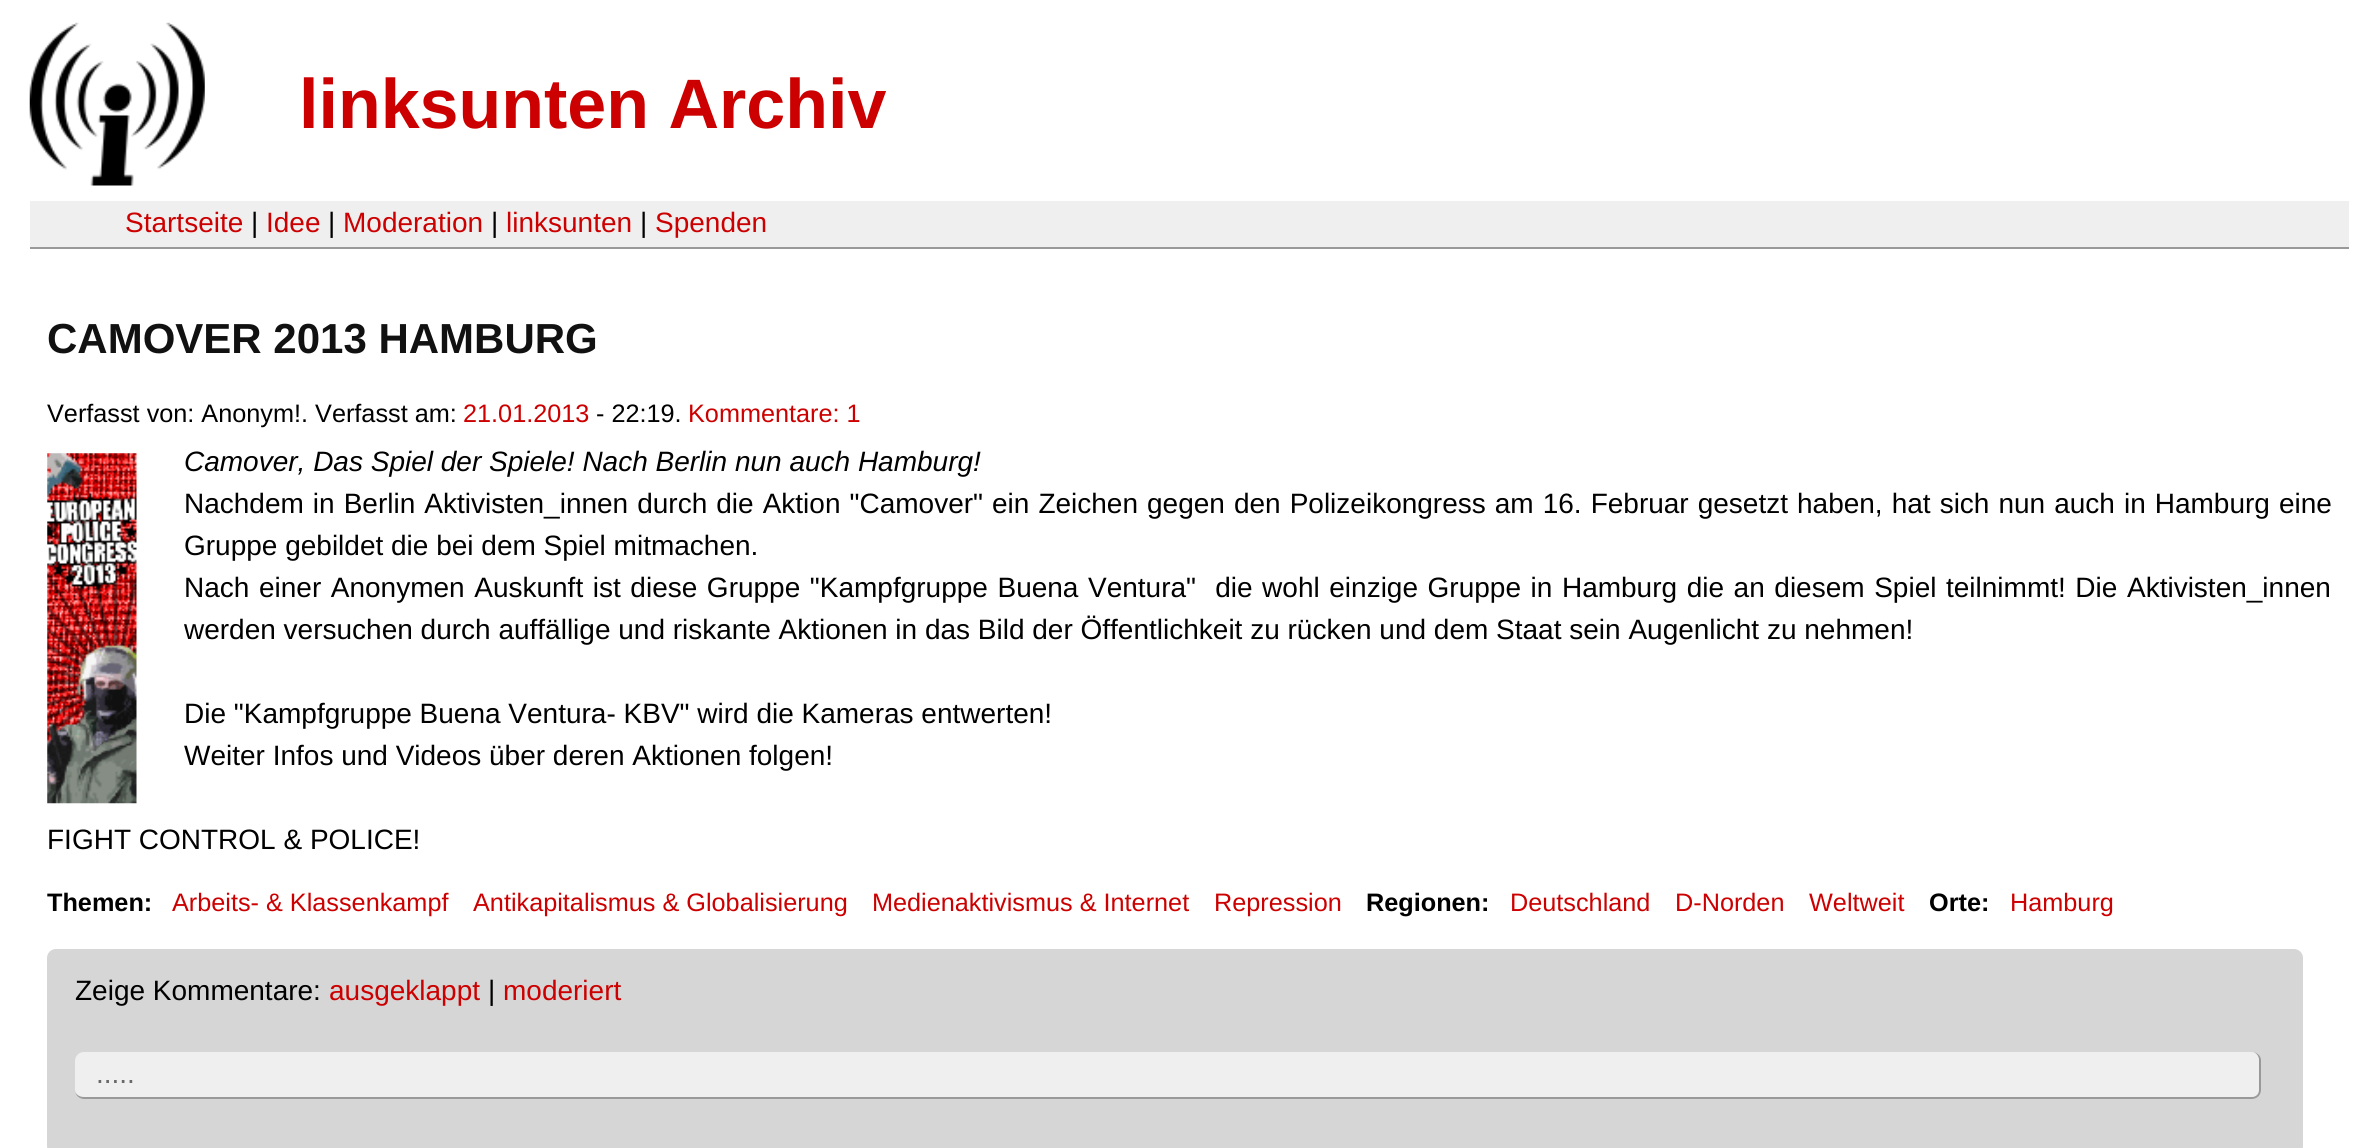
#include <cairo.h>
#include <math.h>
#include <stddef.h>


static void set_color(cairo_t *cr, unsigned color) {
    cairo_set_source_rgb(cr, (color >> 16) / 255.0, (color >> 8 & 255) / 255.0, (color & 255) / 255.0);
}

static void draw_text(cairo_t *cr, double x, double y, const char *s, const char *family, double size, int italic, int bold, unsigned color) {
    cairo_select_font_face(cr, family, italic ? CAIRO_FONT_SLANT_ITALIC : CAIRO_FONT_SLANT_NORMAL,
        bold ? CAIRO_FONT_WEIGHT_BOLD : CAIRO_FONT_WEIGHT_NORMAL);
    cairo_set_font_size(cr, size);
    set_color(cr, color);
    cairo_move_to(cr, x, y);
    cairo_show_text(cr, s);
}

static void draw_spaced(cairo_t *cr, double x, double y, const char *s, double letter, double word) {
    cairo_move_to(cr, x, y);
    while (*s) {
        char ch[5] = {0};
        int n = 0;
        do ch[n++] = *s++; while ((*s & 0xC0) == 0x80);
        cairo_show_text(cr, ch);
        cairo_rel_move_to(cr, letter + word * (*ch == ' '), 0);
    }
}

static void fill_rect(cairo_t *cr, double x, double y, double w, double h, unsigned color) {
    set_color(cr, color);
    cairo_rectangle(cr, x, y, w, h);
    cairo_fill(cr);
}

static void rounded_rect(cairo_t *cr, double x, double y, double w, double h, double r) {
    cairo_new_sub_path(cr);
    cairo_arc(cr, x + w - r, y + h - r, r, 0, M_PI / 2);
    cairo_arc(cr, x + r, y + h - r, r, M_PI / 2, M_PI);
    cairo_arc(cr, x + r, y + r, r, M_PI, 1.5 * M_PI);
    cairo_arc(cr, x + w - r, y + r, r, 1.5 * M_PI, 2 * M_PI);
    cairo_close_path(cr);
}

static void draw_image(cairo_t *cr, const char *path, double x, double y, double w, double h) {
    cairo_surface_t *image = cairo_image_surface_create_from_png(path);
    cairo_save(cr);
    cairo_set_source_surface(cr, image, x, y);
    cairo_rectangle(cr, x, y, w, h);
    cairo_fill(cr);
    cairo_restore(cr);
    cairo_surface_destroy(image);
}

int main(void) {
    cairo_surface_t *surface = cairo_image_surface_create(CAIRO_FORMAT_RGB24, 2377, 1148);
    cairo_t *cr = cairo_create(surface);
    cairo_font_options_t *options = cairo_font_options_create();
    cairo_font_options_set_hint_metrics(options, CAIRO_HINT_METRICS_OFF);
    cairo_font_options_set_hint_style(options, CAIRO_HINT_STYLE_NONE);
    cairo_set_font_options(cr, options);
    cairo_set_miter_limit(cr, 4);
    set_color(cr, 0xFFFFFF);
    cairo_paint(cr);
    draw_image(cr, "assets/img1.png", 29, 22, 176, 164);
    draw_text(cr, 299, 128, "linksunten Archiv", "Liberation Sans", 70, 0, 1, 0xCC0000);
    fill_rect(cr, 30, 201, 2319, 46, 0xEFEFEF);
    fill_rect(cr, 30, 247, 2319, 2, 0x999999);
    draw_text(cr, 125, 232, "Startseite", "Liberation Sans", 28, 0, 0, 0xCC0000);
    draw_text(cr, 251, 232, "|", "Liberation Sans", 28, 0, 0, 0x000000);
    draw_text(cr, 266, 232, "Idee", "Liberation Sans", 28, 0, 0, 0xCC0000);
    draw_text(cr, 328, 232, "|", "Liberation Sans", 28, 0, 0, 0x000000);
    draw_text(cr, 343, 232, "Moderation", "Liberation Sans", 28, 0, 0, 0xCC0000);
    draw_text(cr, 491, 232, "|", "Liberation Sans", 28, 0, 0, 0x000000);
    draw_text(cr, 506, 232, "linksunten", "Liberation Sans", 28, 0, 0, 0xCC0000);
    draw_text(cr, 640, 232, "|", "Liberation Sans", 28, 0, 0, 0x000000);
    draw_text(cr, 655, 232, "Spenden", "Liberation Sans", 28, 0, 0, 0xCC0000);
    draw_text(cr, 47, 353, "CAMOVER 2013 HAMBURG", "Liberation Sans", 42, 0, 1, 0x111111);
    draw_text(cr, 47, 422, "Verfasst von: Anonym!. Verfasst am:", "Liberation Sans", 25.25, 0, 0, 0x000000);
    draw_text(cr, 463, 422, "21.01.2013", "Liberation Sans", 25.25, 0, 0, 0xCC0000);
    draw_text(cr, 596, 422, "- 22:19.", "Liberation Sans", 25.25, 0, 0, 0x000000);
    draw_text(cr, 688, 422, "Kommentare: 1", "Liberation Sans", 25.25, 0, 0, 0xCC0000);
    draw_text(cr, 184, 471, "Camover, Das Spiel der Spiele! Nach Berlin nun auch Hamburg!", "Liberation Sans", 28, 1, 0, 0x000000);
    cairo_select_font_face(cr, "Liberation Sans", CAIRO_FONT_SLANT_NORMAL, CAIRO_FONT_WEIGHT_NORMAL);
    draw_spaced(cr, 184, 513, "Nachdem in Berlin Aktivisten_innen durch die Aktion \"Camover\" ein Zeichen gegen den Polizeikongress am 16. Februar gesetzt haben, hat sich nun auch in Hamburg eine", 0, 1.25);
    draw_text(cr, 184, 555, "Gruppe gebildet die bei dem Spiel mitmachen.", "Liberation Sans", 28, 0, 0, 0x000000);
    draw_spaced(cr, 184, 597, "Nach einer Anonymen Auskunft ist diese Gruppe \"Kampfgruppe Buena Ventura\"  die wohl einzige Gruppe in Hamburg die an diesem Spiel teilnimmt! Die Aktivisten_innen", 0, 1.8);
    draw_text(cr, 184, 639, "werden versuchen durch auffällige und riskante Aktionen in das Bild der Öffentlichkeit zu rücken und dem Staat sein Augenlicht zu nehmen!", "Liberation Sans", 28, 0, 0, 0x000000);
    draw_text(cr, 184, 723, "Die \"Kampfgruppe Buena Ventura- KBV\" wird die Kameras entwerten!", "Liberation Sans", 28, 0, 0, 0x000000);
    draw_text(cr, 184, 765, "Weiter Infos und Videos über deren Aktionen folgen!", "Liberation Sans", 28, 0, 0, 0x000000);
    draw_text(cr, 47, 849, "FIGHT CONTROL & POLICE!", "Liberation Sans", 28, 0, 0, 0x000000);
    draw_image(cr, "assets/img2.png", 47, 453, 90, 351);
    draw_text(cr, 47, 911, "Themen:", "Liberation Sans", 25.25, 0, 1, 0x000000);
    draw_text(cr, 172, 911, "Arbeits- & Klassenkampf", "Liberation Sans", 25.25, 0, 0, 0xCC0000);
    draw_text(cr, 473, 911, "Antikapitalismus & Globalisierung", "Liberation Sans", 25.25, 0, 0, 0xCC0000);
    draw_text(cr, 872, 911, "Medienaktivismus & Internet", "Liberation Sans", 25.25, 0, 0, 0xCC0000);
    draw_text(cr, 1214, 911, "Repression", "Liberation Sans", 25.25, 0, 0, 0xCC0000);
    draw_text(cr, 1366, 911, "Regionen:", "Liberation Sans", 25.25, 0, 1, 0x000000);
    draw_text(cr, 1510, 911, "Deutschland", "Liberation Sans", 25.25, 0, 0, 0xCC0000);
    draw_text(cr, 1675, 911, "D-Norden", "Liberation Sans", 25.25, 0, 0, 0xCC0000);
    draw_text(cr, 1809, 911, "Weltweit", "Liberation Sans", 25.25, 0, 0, 0xCC0000);
    draw_text(cr, 1929, 911, "Orte:", "Liberation Sans", 25.25, 0, 1, 0x000000);
    draw_text(cr, 2010, 911, "Hamburg", "Liberation Sans", 25.25, 0, 0, 0xCC0000);
    set_color(cr, 0xD5D6D5);
    rounded_rect(cr, 47, 949, 2256, 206, 9);
    cairo_fill(cr);
    draw_text(cr, 75, 1000, "Zeige Kommentare:", "Liberation Sans", 28, 0, 0, 0x000000);
    draw_text(cr, 329, 1000, "ausgeklappt", "Liberation Sans", 28, 0, 0, 0xCC0000);
    draw_text(cr, 488, 1000, "|", "Liberation Sans", 28, 0, 0, 0x000000);
    draw_text(cr, 503, 1000, "moderiert", "Liberation Sans", 28, 0, 0, 0xCC0000);
    set_color(cr, 0xEFEFEF);
    rounded_rect(cr, 75, 1052, 2186, 47, 9);
    cairo_fill(cr);
    set_color(cr, 0x999999);
    cairo_set_fill_rule(cr, CAIRO_FILL_RULE_EVEN_ODD);
    cairo_new_path(cr);
    cairo_move_to(cr, 84, 1052);
    cairo_line_to(cr, 2252, 1052);
    cairo_curve_to(cr, 2257, 1052, 2261, 1056, 2261, 1060);
    cairo_line_to(cr, 2261, 1090);
    cairo_curve_to(cr, 2261, 1095, 2257, 1099, 2252, 1099);
    cairo_line_to(cr, 84, 1099);
    cairo_curve_to(cr, 79, 1099, 75, 1095, 75, 1090);
    cairo_line_to(cr, 75, 1060);
    cairo_curve_to(cr, 75, 1056, 79, 1052, 84, 1052);
    cairo_close_path(cr);
    cairo_move_to(cr, 84, 1052);
    cairo_line_to(cr, 2252, 1052);
    cairo_curve_to(cr, 2256, 1052, 2259, 1056, 2259, 1060);
    cairo_line_to(cr, 2259, 1090);
    cairo_curve_to(cr, 2259, 1094, 2256, 1097, 2252, 1097);
    cairo_line_to(cr, 84, 1097);
    cairo_curve_to(cr, 79, 1097, 75, 1094, 75, 1090);
    cairo_line_to(cr, 75, 1060);
    cairo_curve_to(cr, 75, 1056, 79, 1052, 84, 1052);
    cairo_close_path(cr);
    cairo_fill(cr);
    draw_text(cr, 96, 1083, ".....", "Liberation Sans", 28, 0, 0, 0x696969);
    cairo_surface_write_to_png(surface, "output.png");
    cairo_font_options_destroy(options);
    cairo_destroy(cr);
    cairo_surface_destroy(surface);
    return 0;
}
